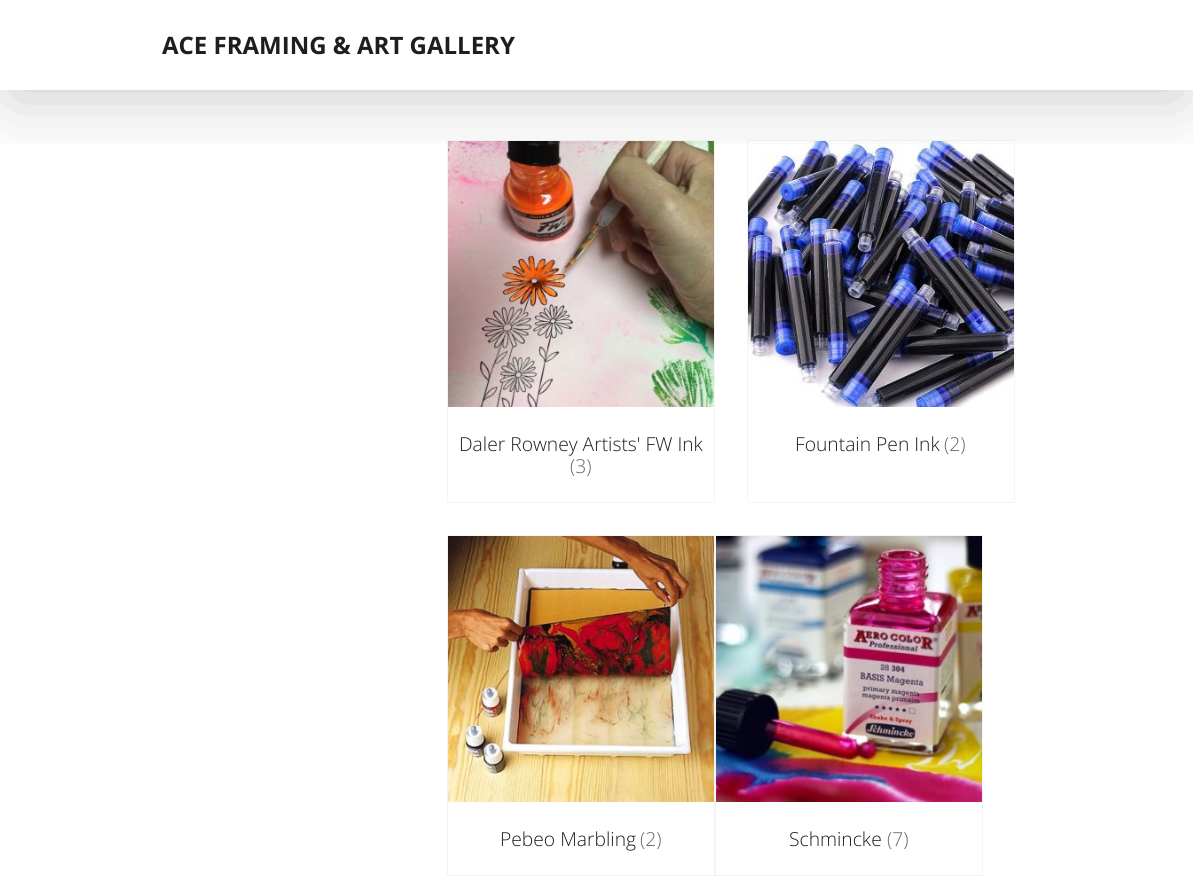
#include <cairo.h>
#include <math.h>
#include <stddef.h>


static void set_color(cairo_t *cr, unsigned color) {
    cairo_set_source_rgb(cr, (color >> 16) / 255.0, (color >> 8 & 255) / 255.0, (color & 255) / 255.0);
}

static void draw_text(cairo_t *cr, double x, double y, const char *s, const char *family, double size, int italic, int bold, unsigned color) {
    cairo_select_font_face(cr, family, italic ? CAIRO_FONT_SLANT_ITALIC : CAIRO_FONT_SLANT_NORMAL,
        bold ? CAIRO_FONT_WEIGHT_BOLD : CAIRO_FONT_WEIGHT_NORMAL);
    cairo_set_font_size(cr, size);
    set_color(cr, color);
    cairo_move_to(cr, x, y);
    cairo_show_text(cr, s);
}

static void rounded_rect(cairo_t *cr, double x, double y, double w, double h, double r) {
    cairo_new_sub_path(cr);
    cairo_arc(cr, x + w - r, y + h - r, r, 0, M_PI / 2);
    cairo_arc(cr, x + r, y + h - r, r, M_PI / 2, M_PI);
    cairo_arc(cr, x + r, y + r, r, M_PI, 1.5 * M_PI);
    cairo_arc(cr, x + w - r, y + r, r, 1.5 * M_PI, 2 * M_PI);
    cairo_close_path(cr);
}

static void draw_shadow(cairo_t *cr, double x, double y, double w, double h, double r, double blur, double alpha) {
    cairo_push_group_with_content(cr, CAIRO_CONTENT_ALPHA);
    cairo_set_operator(cr, CAIRO_OPERATOR_SOURCE);
    for (int i = 15; i >= -15 && fmin(w, h) + blur * i / 3 > 0; i -= 2) {
        double e = blur * i / 6;
        cairo_set_source_rgba(cr, 0, 0, 0, alpha * erfc((i - 1) / 8.5) / 2);
        rounded_rect(cr, x - e, y - e, w + 2 * e, h + 2 * e, fmax(0, fmin(r + e + blur * .6, fmin(w, h) / 2 + e)));
        cairo_fill(cr);
    }
    cairo_pattern_t *soft = cairo_pop_group(cr);
    cairo_mask(cr, soft);
    cairo_pattern_destroy(soft);
}

static void draw_image(cairo_t *cr, const char *path, double x, double y, double w, double h) {
    cairo_surface_t *image = cairo_image_surface_create_from_png(path);
    cairo_save(cr);
    cairo_set_source_surface(cr, image, x, y);
    cairo_rectangle(cr, x, y, w, h);
    cairo_fill(cr);
    cairo_restore(cr);
    cairo_surface_destroy(image);
}

int main(void) {
    cairo_surface_t *surface = cairo_image_surface_create(CAIRO_FORMAT_RGB24, 1193, 889);
    cairo_t *cr = cairo_create(surface);
    cairo_font_options_t *options = cairo_font_options_create();
    cairo_font_options_set_hint_metrics(options, CAIRO_HINT_METRICS_OFF);
    cairo_font_options_set_hint_style(options, CAIRO_HINT_STYLE_NONE);
    cairo_set_font_options(cr, options);
    cairo_set_miter_limit(cr, 4);
    set_color(cr, 0xFFFFFF);
    cairo_paint(cr);
    cairo_rectangle(cr, 447.5, 140.5, 267, 362);
    set_color(cr, 0xF4F4F4);
    cairo_set_line_width(cr, 1);
    cairo_stroke(cr);
    draw_image(cr, "assets/img1.png", 448, 141, 266, 266);
    cairo_rectangle(cr, 747.5, 140.5, 267, 362);
    cairo_stroke(cr);
    draw_image(cr, "assets/img2.png", 748, 141, 266, 266);
    cairo_save(cr);
    cairo_rectangle(cr, 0, 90, 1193, 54);
    cairo_clip(cr);
    set_color(cr, 0x000000);
    draw_shadow(cr, 10, 29, 1173, 70, 0, 35.5, 0.2);
    cairo_restore(cr);
    draw_text(cr, 162, 54, "ACE FRAMING & ART GALLERY", "Open Sans", 24, 0, 1, 0x1E1E1E);
    draw_text(cr, 459, 451, "Daler Rowney Artists' FW Ink", "Open Sans Light", 19.25, 0, 0, 0x1E1E1E);
    draw_text(cr, 570, 473, "(3)", "Open Sans Light", 19.25, 0, 0, 0x666666);
    draw_text(cr, 795, 451, "Fountain Pen Ink", "Open Sans Light", 19.25, 0, 0, 0x1E1E1E);
    draw_text(cr, 944, 451, "(2)", "Open Sans Light", 19.25, 0, 0, 0x666666);
    cairo_rectangle(cr, 447.5, 535.5, 267, 340);
    set_color(cr, 0xF4F4F4);
    cairo_stroke(cr);
    draw_image(cr, "assets/img3.png", 448, 536, 266, 266);
    draw_text(cr, 500, 846, "Pebeo Marbling", "Open Sans Light", 19.25, 0, 0, 0x1E1E1E);
    draw_text(cr, 640, 846, "(2)", "Open Sans Light", 19.25, 0, 0, 0x666666);
    cairo_rectangle(cr, 715.5, 535.5, 267, 340);
    set_color(cr, 0xF4F4F4);
    cairo_stroke(cr);
    draw_image(cr, "assets/img4.png", 716, 536, 266, 266);
    draw_text(cr, 789, 846, "Schmincke", "Open Sans Light", 19.25, 0, 0, 0x1E1E1E);
    draw_text(cr, 887, 846, "(7)", "Open Sans Light", 19.25, 0, 0, 0x666666);
    cairo_surface_write_to_png(surface, "output.png");
    cairo_font_options_destroy(options);
    cairo_destroy(cr);
    cairo_surface_destroy(surface);
    return 0;
}
